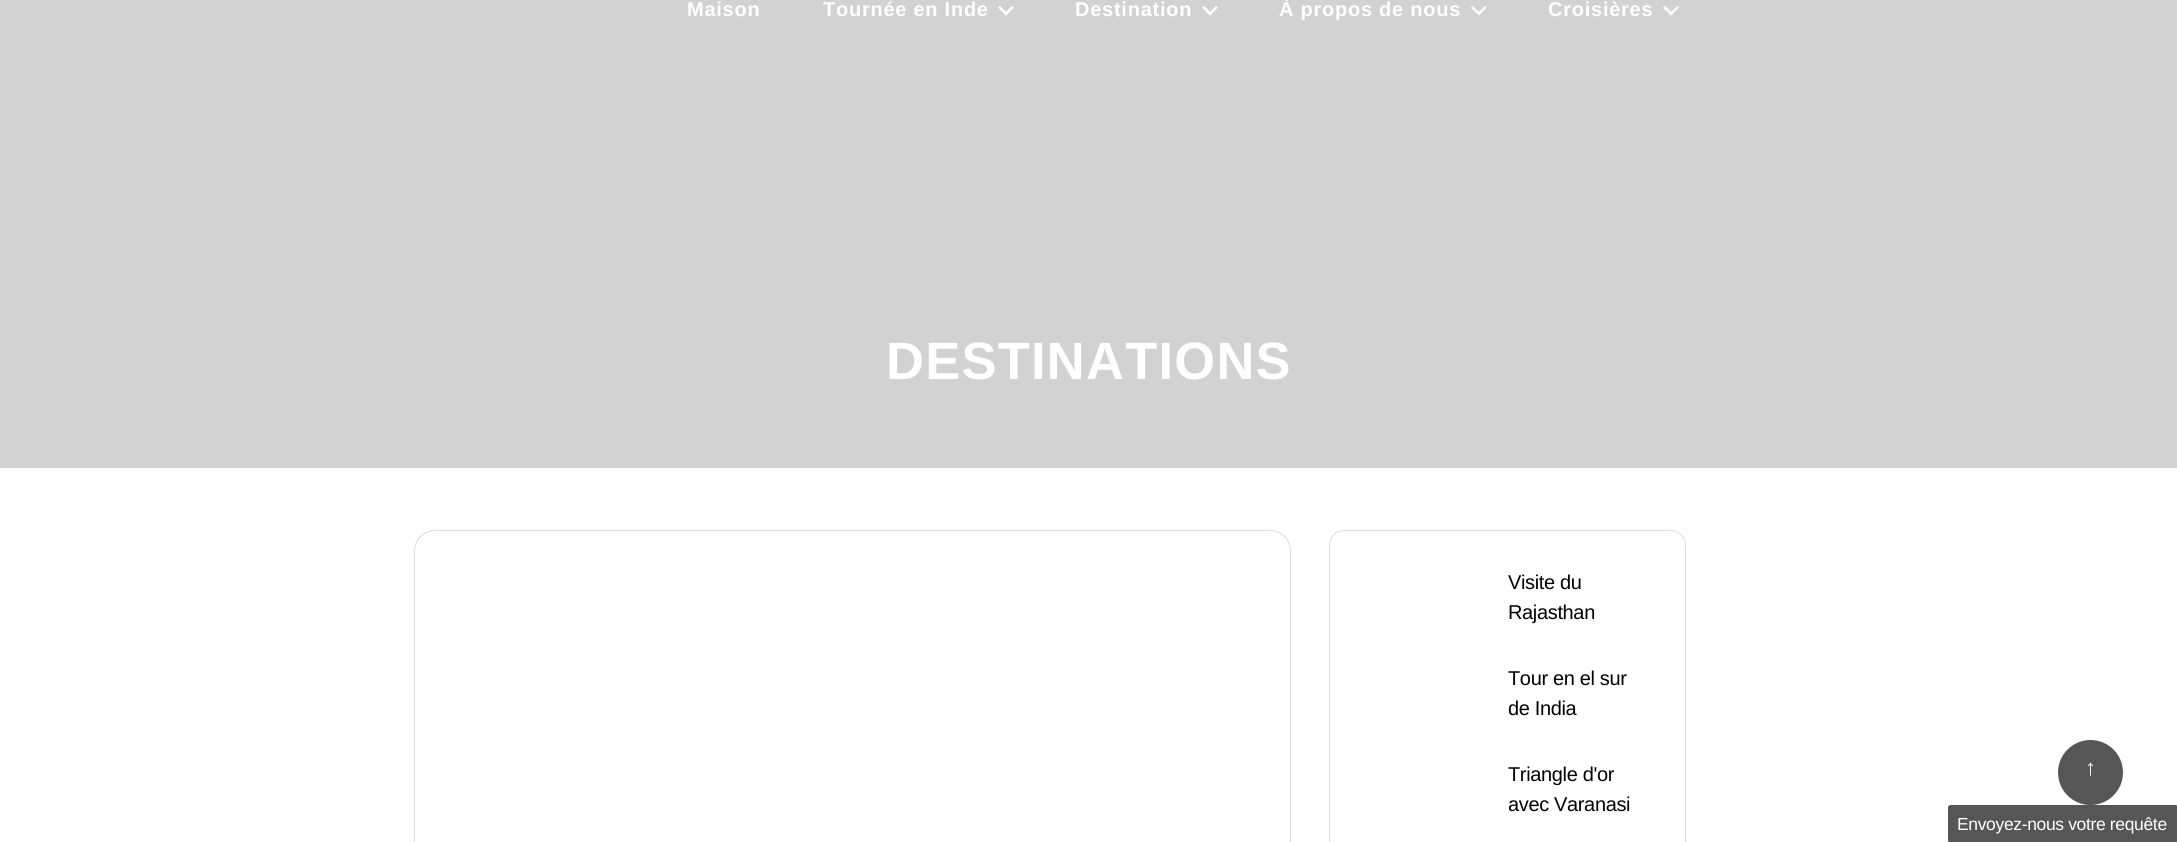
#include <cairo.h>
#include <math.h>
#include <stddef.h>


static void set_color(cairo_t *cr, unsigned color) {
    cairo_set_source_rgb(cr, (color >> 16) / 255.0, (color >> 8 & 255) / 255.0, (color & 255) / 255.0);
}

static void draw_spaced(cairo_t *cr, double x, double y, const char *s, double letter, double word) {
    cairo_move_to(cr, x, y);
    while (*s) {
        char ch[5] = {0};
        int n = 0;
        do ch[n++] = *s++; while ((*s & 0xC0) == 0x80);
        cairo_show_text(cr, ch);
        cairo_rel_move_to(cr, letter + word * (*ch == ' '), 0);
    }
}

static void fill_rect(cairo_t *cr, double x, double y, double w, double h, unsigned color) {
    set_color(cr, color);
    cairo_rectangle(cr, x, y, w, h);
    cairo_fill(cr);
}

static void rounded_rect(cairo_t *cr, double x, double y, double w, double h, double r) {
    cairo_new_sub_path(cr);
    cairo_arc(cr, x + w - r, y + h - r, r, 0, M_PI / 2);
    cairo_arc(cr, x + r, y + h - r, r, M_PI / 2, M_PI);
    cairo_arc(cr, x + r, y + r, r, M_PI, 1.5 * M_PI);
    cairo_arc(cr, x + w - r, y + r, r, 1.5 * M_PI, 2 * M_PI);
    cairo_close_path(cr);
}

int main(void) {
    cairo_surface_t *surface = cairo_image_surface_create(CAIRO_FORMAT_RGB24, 2177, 842);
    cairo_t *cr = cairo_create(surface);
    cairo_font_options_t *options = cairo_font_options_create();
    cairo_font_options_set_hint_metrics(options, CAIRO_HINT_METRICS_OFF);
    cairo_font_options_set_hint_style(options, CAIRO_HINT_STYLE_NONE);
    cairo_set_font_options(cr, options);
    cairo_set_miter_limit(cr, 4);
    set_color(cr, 0xFFFFFF);
    cairo_paint(cr);
    fill_rect(cr, 0, 0, 2177, 468, 0xD2D2D2);
    cairo_select_font_face(cr, "Liberation Sans", CAIRO_FONT_SLANT_NORMAL, CAIRO_FONT_WEIGHT_BOLD);
    cairo_set_font_size(cr, 20);
    set_color(cr, 0xFFFFFF);
    draw_spaced(cr, 687, 16, "Maison", 0.75, 0);
    draw_spaced(cr, 823, 16, "Tournée en Inde", 0.75, 0);
    cairo_new_path(cr);
    cairo_move_to(cr, 998, 7.5);
    cairo_line_to(cr, 1000, 6);
    cairo_line_to(cr, 1007.5, 13.5);
    cairo_line_to(cr, 1006, 15.5);
    cairo_close_path(cr);
    cairo_fill(cr);
    cairo_new_path(cr);
    cairo_move_to(cr, 1004, 13.5);
    cairo_line_to(cr, 1012, 6);
    cairo_line_to(cr, 1014, 7.5);
    cairo_line_to(cr, 1006, 15.5);
    cairo_close_path(cr);
    cairo_fill(cr);
    draw_spaced(cr, 1075, 16, "Destination", 0.75, 0);
    cairo_new_path(cr);
    cairo_move_to(cr, 1202, 7.5);
    cairo_line_to(cr, 1204, 6);
    cairo_line_to(cr, 1212, 13.5);
    cairo_line_to(cr, 1210, 15.5);
    cairo_close_path(cr);
    cairo_fill(cr);
    cairo_new_path(cr);
    cairo_move_to(cr, 1208.5, 13.5);
    cairo_line_to(cr, 1216, 6);
    cairo_line_to(cr, 1218, 7.5);
    cairo_line_to(cr, 1210, 15.5);
    cairo_close_path(cr);
    cairo_fill(cr);
    draw_spaced(cr, 1279, 16, "À propos de nous", 0.75, 0);
    cairo_new_path(cr);
    cairo_move_to(cr, 1471, 7.5);
    cairo_line_to(cr, 1472.5, 6);
    cairo_line_to(cr, 1480.5, 13.5);
    cairo_line_to(cr, 1479, 15.5);
    cairo_close_path(cr);
    cairo_fill(cr);
    cairo_new_path(cr);
    cairo_move_to(cr, 1477, 13.5);
    cairo_line_to(cr, 1485, 6);
    cairo_line_to(cr, 1486.5, 7.5);
    cairo_line_to(cr, 1479, 15.5);
    cairo_close_path(cr);
    cairo_fill(cr);
    draw_spaced(cr, 1548, 16, "Croisières", 0.75, 0);
    cairo_new_path(cr);
    cairo_move_to(cr, 1663, 7.5);
    cairo_line_to(cr, 1665, 6);
    cairo_line_to(cr, 1673, 13.5);
    cairo_line_to(cr, 1671, 15.5);
    cairo_close_path(cr);
    cairo_fill(cr);
    cairo_new_path(cr);
    cairo_move_to(cr, 1669.5, 13.5);
    cairo_line_to(cr, 1677.5, 6);
    cairo_line_to(cr, 1679, 7.5);
    cairo_line_to(cr, 1671, 15.5);
    cairo_close_path(cr);
    cairo_fill(cr);
    cairo_set_font_size(cr, 52.5);
    draw_spaced(cr, 886, 379, "DESTINATIONS", 1.25, 0);
    rounded_rect(cr, 414.5, 530.5, 876, 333, 20.5);
    set_color(cr, 0xDCDCDC);
    cairo_set_line_width(cr, 1);
    cairo_stroke(cr);
    rounded_rect(cr, 1329.5, 530.5, 356, 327, 14.5);
    cairo_stroke(cr);
    cairo_select_font_face(cr, "Liberation Sans", CAIRO_FONT_SLANT_NORMAL, CAIRO_FONT_WEIGHT_NORMAL);
    cairo_set_font_size(cr, 20);
    set_color(cr, 0x000000);
    draw_spaced(cr, 1508, 589, "Visite du", -0.35, 0);
    draw_spaced(cr, 1508, 619, "Rajasthan", -0.35, 0);
    draw_spaced(cr, 1508, 685, "Tour en el sur", -0.35, 0);
    draw_spaced(cr, 1508, 715, "de India", -0.35, 0);
    draw_spaced(cr, 1508, 781, "Triangle d'or", -0.35, 0);
    draw_spaced(cr, 1508, 811, "avec Varanasi", -0.35, 0);
    set_color(cr, 0x565656);
    cairo_new_path(cr);
    cairo_arc(cr, 2090.5, 772.5, 32.5, 0, 2 * M_PI);
    cairo_fill(cr);
    cairo_set_font_size(cr, 22);
    set_color(cr, 0xFFFFFF);
    draw_spaced(cr, 2085, 775, "↑", -0.35, 0);
    set_color(cr, 0x565656);
    rounded_rect(cr, 1948, 805, 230, 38, 2.5);
    cairo_fill(cr);
    cairo_set_font_size(cr, 17.5);
    set_color(cr, 0xFFFFFF);
    draw_spaced(cr, 1957, 830, "Envoyez-nous votre requête", -0.35, 0);
    cairo_surface_write_to_png(surface, "output.png");
    cairo_font_options_destroy(options);
    cairo_destroy(cr);
    cairo_surface_destroy(surface);
    return 0;
}
